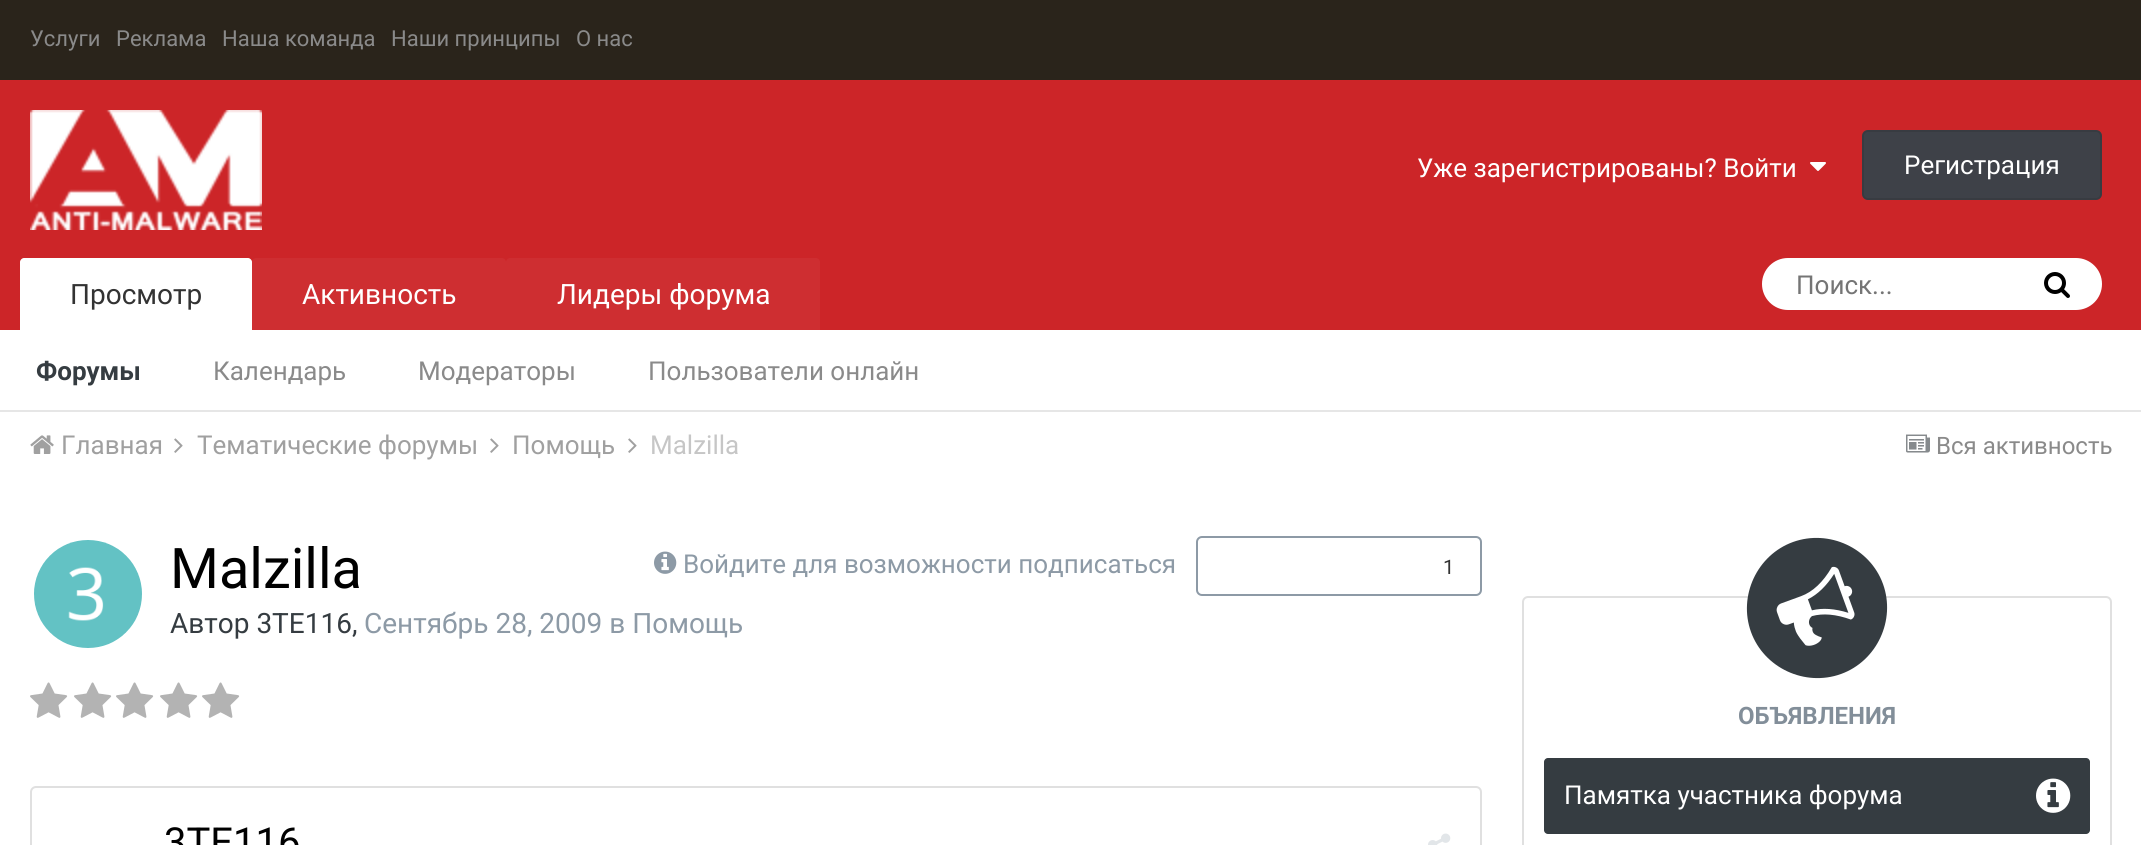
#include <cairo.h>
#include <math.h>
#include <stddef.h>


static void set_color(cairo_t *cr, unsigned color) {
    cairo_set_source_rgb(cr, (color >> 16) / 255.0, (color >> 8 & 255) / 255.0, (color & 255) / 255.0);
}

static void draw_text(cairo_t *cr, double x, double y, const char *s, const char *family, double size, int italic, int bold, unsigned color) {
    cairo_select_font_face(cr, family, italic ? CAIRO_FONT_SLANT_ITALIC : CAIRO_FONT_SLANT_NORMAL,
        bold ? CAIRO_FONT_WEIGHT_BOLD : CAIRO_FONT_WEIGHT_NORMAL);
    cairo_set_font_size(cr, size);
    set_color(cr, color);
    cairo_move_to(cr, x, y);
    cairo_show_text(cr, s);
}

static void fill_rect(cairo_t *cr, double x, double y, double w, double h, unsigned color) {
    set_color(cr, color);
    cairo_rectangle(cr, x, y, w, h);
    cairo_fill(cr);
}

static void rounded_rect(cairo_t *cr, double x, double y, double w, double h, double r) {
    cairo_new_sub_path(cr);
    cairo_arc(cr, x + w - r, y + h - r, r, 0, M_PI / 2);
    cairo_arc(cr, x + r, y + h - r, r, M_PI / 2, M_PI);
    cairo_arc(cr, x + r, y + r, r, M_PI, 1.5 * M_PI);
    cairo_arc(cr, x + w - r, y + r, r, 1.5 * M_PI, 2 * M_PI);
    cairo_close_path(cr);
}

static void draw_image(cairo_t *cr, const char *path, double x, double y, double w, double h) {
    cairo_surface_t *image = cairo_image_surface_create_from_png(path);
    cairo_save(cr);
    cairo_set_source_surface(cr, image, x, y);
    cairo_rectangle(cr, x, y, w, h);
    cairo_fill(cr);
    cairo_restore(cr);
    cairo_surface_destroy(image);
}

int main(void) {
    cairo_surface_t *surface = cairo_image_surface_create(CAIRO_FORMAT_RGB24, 2141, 845);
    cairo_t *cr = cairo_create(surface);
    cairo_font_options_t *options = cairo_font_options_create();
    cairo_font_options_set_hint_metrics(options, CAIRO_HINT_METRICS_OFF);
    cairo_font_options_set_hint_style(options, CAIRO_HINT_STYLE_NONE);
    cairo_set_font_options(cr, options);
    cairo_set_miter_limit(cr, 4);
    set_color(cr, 0xFFFFFF);
    cairo_paint(cr);
    fill_rect(cr, 0, 0, 2141, 80, 0x2A241B);
    draw_text(cr, 30, 46, "Услуги", "Roboto", 22, 0, 0, 0x8A8A8A);
    draw_text(cr, 116, 46, "Реклама", "Roboto", 22, 0, 0, 0x8A8A8A);
    draw_text(cr, 222, 46, "Наша команда", "Roboto", 22, 0, 0, 0x8A8A8A);
    draw_text(cr, 391, 46, "Наши принципы", "Roboto", 22, 0, 0, 0x8A8A8A);
    draw_text(cr, 576, 46, "О нас", "Roboto", 22, 0, 0, 0x8A8A8A);
    fill_rect(cr, 0, 410, 2141, 2, 0xE6E6E6);
    fill_rect(cr, 0, 80, 2141, 250, 0xCC2528);
    draw_image(cr, "assets/img1.png", 30, 110, 232, 120);
    draw_text(cr, 1417, 177, "Уже зарегистрированы? Войти", "Roboto", 26, 0, 0, 0xFFFFFF);
    draw_image(cr, "assets/img2.png", 1810, 162, 16, 9);
    set_color(cr, 0x3E4148);
    rounded_rect(cr, 1862, 130, 240, 70, 6);
    cairo_fill(cr);
    rounded_rect(cr, 1863, 131, 238, 68, 5);
    cairo_set_source_rgba(cr, 0, 0, 0, 0.1);
    cairo_stroke(cr);
    draw_text(cr, 1904, 174, "Регистрация", "Roboto", 26, 0, 0, 0xFFFFFF);
    set_color(cr, 0xCE2E31);
    cairo_new_path(cr);
    cairo_move_to(cr, 510, 258);
    cairo_line_to(cr, 816, 258);
    cairo_curve_to(cr, 818, 258, 820, 260, 820, 262);
    cairo_line_to(cr, 820, 330);
    cairo_line_to(cr, 506, 330);
    cairo_line_to(cr, 506, 262);
    cairo_curve_to(cr, 506, 260, 508, 258, 510, 258);
    cairo_close_path(cr);
    cairo_fill(cr);
    draw_text(cr, 557, 304, "Лидеры форума", "Roboto", 28, 0, 0, 0xFFFFFF);
    cairo_new_path(cr);
    cairo_move_to(cr, 24, 258);
    cairo_line_to(cr, 248, 258);
    cairo_curve_to(cr, 250, 258, 252, 260, 252, 262);
    cairo_line_to(cr, 252, 330);
    cairo_line_to(cr, 20, 330);
    cairo_line_to(cr, 20, 262);
    cairo_curve_to(cr, 20, 260, 22, 258, 24, 258);
    cairo_close_path(cr);
    cairo_fill(cr);
    draw_text(cr, 70, 304, "Просмотр", "Roboto", 28, 0, 0, 0x333333);
    draw_text(cr, 36, 380, "Форумы", "Roboto", 26, 0, 1, 0x353C41);
    draw_text(cr, 213, 380, "Календарь", "Roboto", 26, 0, 0, 0x8A8A8A);
    draw_text(cr, 418, 380, "Модераторы", "Roboto", 26, 0, 0, 0x8A8A8A);
    draw_text(cr, 648, 380, "Пользователи онлайн", "Roboto", 26, 0, 0, 0x8A8A8A);
    set_color(cr, 0xCE2E31);
    cairo_new_path(cr);
    cairo_move_to(cr, 256, 258);
    cairo_line_to(cr, 502, 258);
    cairo_curve_to(cr, 504, 258, 506, 260, 506, 262);
    cairo_line_to(cr, 506, 330);
    cairo_line_to(cr, 252, 330);
    cairo_line_to(cr, 252, 262);
    cairo_curve_to(cr, 252, 260, 254, 258, 256, 258);
    cairo_close_path(cr);
    cairo_fill(cr);
    draw_text(cr, 302, 304, "Активность", "Roboto", 28, 0, 0, 0xFFFFFF);
    rounded_rect(cr, 1762, 258, 340, 52, 26);
    cairo_fill(cr);
    draw_text(cr, 1796, 294, "Поиск...", "Roboto", 26, 0, 0, 0x757575);
    draw_image(cr, "assets/img3.png", 2044, 272, 26, 26);
    draw_image(cr, "assets/img4.png", 30, 435, 24, 19);
    draw_text(cr, 61, 454, "Главная", "Roboto", 26, 0, 0, 0xA0A0A0);
    draw_image(cr, "assets/img5.png", 174, 438, 9, 15);
    draw_text(cr, 197, 454, "Тематические форумы", "Roboto", 26, 0, 0, 0xA0A0A0);
    draw_image(cr, "assets/img5.png", 490, 438, 9, 15);
    draw_text(cr, 512, 454, "Помощь", "Roboto", 26, 0, 0, 0xA0A0A0);
    draw_image(cr, "assets/img5.png", 628, 438, 9, 15);
    draw_text(cr, 650, 454, "Malzilla", "Roboto", 26, 0, 0, 0xC6C6C6);
    draw_image(cr, "assets/img6.png", 1906, 434, 24, 19);
    draw_text(cr, 1936, 454, "Вся активность", "Roboto", 24, 0, 0, 0x8A8A8A);
    draw_image(cr, "assets/img7.png", 34, 540, 108, 108);
    draw_text(cr, 170, 588, "Malzilla", "Roboto", 56, 0, 0, 0x000000);
    draw_text(cr, 170, 633, "Автор 3TE116,", "Roboto", 28, 0, 0, 0x353C41);
    draw_text(cr, 364, 633, "Сентябрь 28, 2009 в Помощь", "Roboto", 28, 0, 0, 0x8D9AA6);
    draw_image(cr, "assets/img8.png", 654, 551, 23, 23);
    draw_text(cr, 683, 573, "Войдите для возможности подписаться", "Roboto", 26, 0, 0, 0x8D9AA6);
    rounded_rect(cr, 1197, 537, 284, 58, 5);
    cairo_stroke(cr);
    draw_text(cr, 1443, 574, "1", "Roboto", 20, 0, 0, 0x333333);
    draw_image(cr, "assets/img9.png", 30, 682, 38, 36);
    draw_image(cr, "assets/img9.png", 74, 682, 38, 36);
    draw_image(cr, "assets/img9.png", 116, 682, 38, 36);
    draw_image(cr, "assets/img9.png", 160, 682, 38, 36);
    draw_image(cr, "assets/img9.png", 202, 682, 38, 36);
    rounded_rect(cr, 31, 787, 1450, 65, 5);
    set_color(cr, 0xE0E0E0);
    cairo_stroke(cr);
    draw_text(cr, 164, 856, "3TE116", "Roboto", 40, 0, 0, 0x000000);
    draw_image(cr, "assets/img10.png", 1428, 833, 23, 12);
    rounded_rect(cr, 1523, 597, 588, 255, 5);
    set_color(cr, 0xE0E0E0);
    cairo_stroke(cr);
    set_color(cr, 0x353C41);
    cairo_new_path(cr);
    cairo_move_to(cr, 1793, 542);
    cairo_curve_to(cr, 1829, 529, 1870, 548, 1883, 584);
    cairo_curve_to(cr, 1896, 620, 1877, 661, 1841, 674);
    cairo_curve_to(cr, 1805, 687, 1764, 668, 1751, 632);
    cairo_curve_to(cr, 1738, 596, 1757, 555, 1793, 542);
    cairo_close_path(cr);
    cairo_fill(cr);
    draw_image(cr, "assets/img11.png", 1776, 566, 79, 80);
    draw_text(cr, 1738, 724, "ОБЪЯВЛЕНИЯ", "Roboto", 24, 0, 1, 0x828E99);
    set_color(cr, 0x353C41);
    rounded_rect(cr, 1544, 758, 546, 76, 4);
    cairo_fill(cr);
    draw_text(cr, 1564, 804, "Памятка участника форума", "Roboto", 26, 0, 0, 0xFFFFFF);
    draw_image(cr, "assets/img12.png", 2036, 778, 35, 35);
    cairo_surface_write_to_png(surface, "output.png");
    cairo_font_options_destroy(options);
    cairo_destroy(cr);
    cairo_surface_destroy(surface);
    return 0;
}
